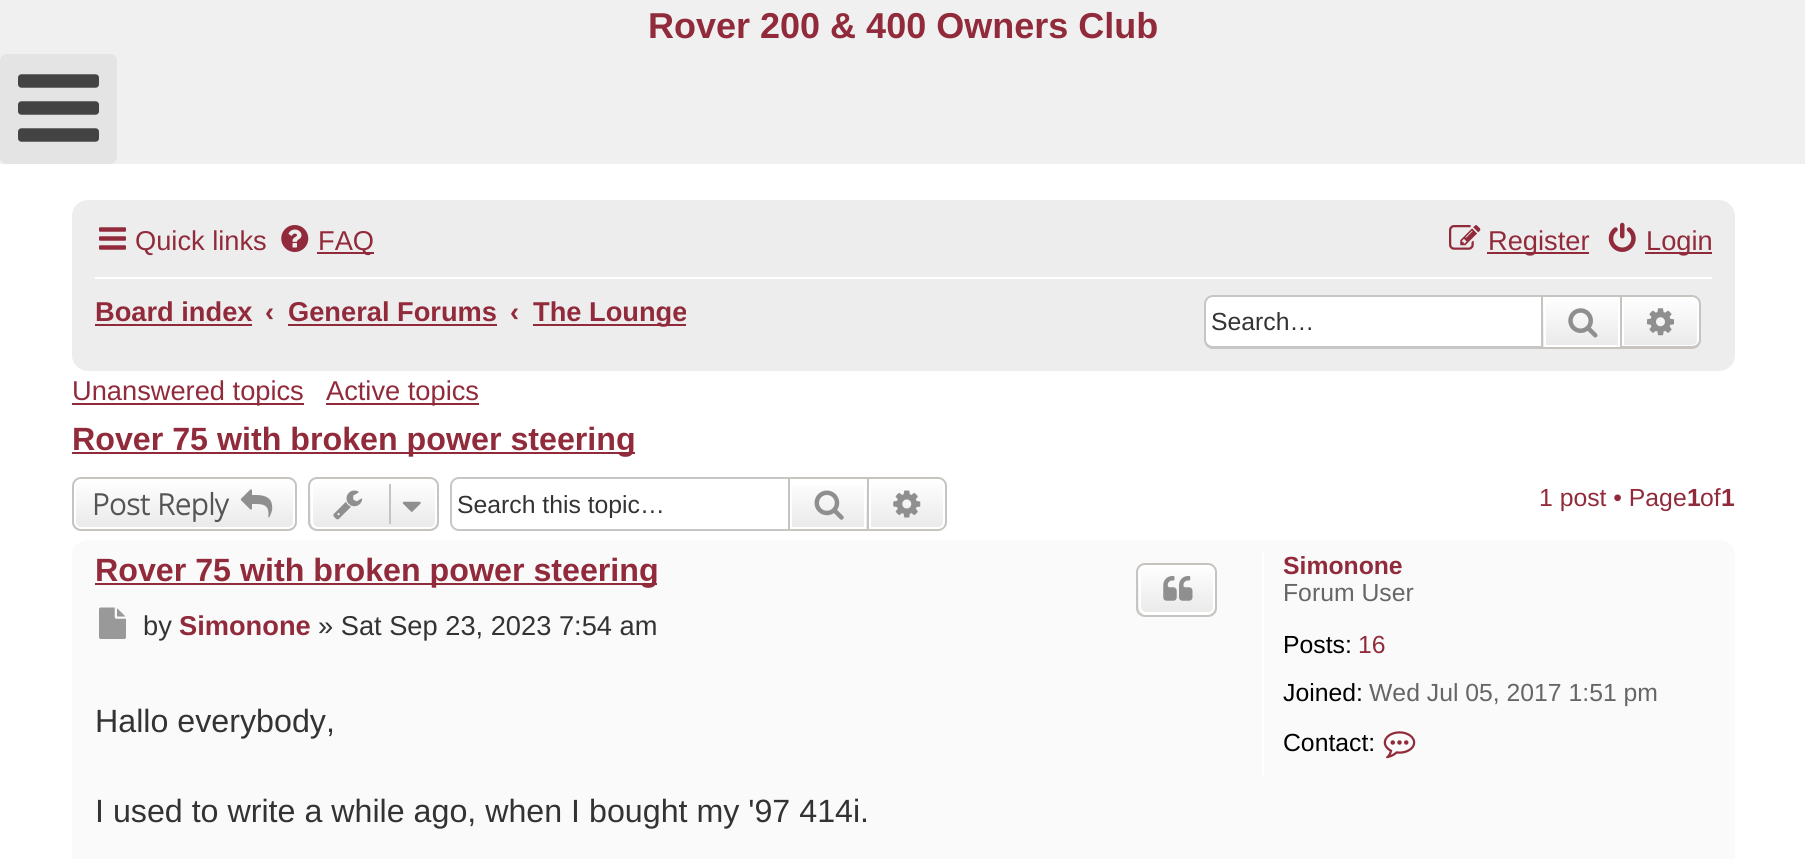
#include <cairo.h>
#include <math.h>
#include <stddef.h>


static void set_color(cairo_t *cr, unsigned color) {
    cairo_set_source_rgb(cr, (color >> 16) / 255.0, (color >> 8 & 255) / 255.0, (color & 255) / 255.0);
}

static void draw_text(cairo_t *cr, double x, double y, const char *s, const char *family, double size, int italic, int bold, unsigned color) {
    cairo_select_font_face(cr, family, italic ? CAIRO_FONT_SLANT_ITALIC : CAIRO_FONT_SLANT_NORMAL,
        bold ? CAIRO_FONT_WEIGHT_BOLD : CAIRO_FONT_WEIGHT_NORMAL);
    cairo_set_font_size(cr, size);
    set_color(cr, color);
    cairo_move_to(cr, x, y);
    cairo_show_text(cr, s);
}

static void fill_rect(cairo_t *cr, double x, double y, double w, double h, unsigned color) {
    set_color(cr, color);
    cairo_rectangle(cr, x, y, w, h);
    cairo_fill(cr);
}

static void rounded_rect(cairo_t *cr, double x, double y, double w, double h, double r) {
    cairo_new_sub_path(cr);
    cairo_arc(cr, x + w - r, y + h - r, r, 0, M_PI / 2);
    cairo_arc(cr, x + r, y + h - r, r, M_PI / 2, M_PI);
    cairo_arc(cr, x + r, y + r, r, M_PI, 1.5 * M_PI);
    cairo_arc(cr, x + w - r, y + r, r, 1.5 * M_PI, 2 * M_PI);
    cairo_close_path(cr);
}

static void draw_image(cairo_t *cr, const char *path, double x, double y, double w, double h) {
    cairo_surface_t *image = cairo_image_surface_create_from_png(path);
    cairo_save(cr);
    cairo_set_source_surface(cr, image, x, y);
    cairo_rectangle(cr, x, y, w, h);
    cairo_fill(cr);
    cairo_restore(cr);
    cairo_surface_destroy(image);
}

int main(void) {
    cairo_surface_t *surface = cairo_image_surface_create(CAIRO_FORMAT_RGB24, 1805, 859);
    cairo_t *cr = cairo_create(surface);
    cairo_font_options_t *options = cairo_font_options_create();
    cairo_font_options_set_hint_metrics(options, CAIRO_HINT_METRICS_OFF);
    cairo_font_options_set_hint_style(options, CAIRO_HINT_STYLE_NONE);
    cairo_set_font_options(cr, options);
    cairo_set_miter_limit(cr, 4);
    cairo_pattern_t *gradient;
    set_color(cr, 0xFFFFFF);
    cairo_paint(cr);
    fill_rect(cr, 0, 0, 1805, 164, 0xF0F0F0);
    draw_text(cr, 648, 38, "Rover 200 & 400 Owners Club", "Liberation Sans", 36, 0, 1, 0x912B3B);
    set_color(cr, 0xE4E4E4);
    rounded_rect(cr, 0, 54, 117, 110, 7);
    cairo_fill(cr);
    draw_image(cr, "assets/img1.png", 18, 74, 81, 68);
    set_color(cr, 0xEDEDED);
    rounded_rect(cr, 72, 200, 1663, 171, 16);
    cairo_fill(cr);
    draw_image(cr, "assets/img2.png", 99, 227, 27, 23);
    draw_text(cr, 135, 250, "Quick links", "Liberation Sans", 27.25, 0, 0, 0x912B3B);
    draw_image(cr, "assets/img3.png", 281, 225, 28, 27);
    fill_rect(cr, 317, 252, 57, 2, 0x912B3B);
    draw_text(cr, 318, 250, "FAQ", "Liberation Sans", 27.25, 0, 0, 0x912B3B);
    draw_image(cr, "assets/img4.png", 1449, 225, 32, 25);
    fill_rect(cr, 1487, 252, 102, 2, 0x912B3B);
    draw_text(cr, 1488, 250, "Register", "Liberation Sans", 27.25, 0, 0, 0x912B3B);
    draw_image(cr, "assets/img5.png", 1608, 222, 28, 30);
    fill_rect(cr, 1645, 252, 67, 2, 0x912B3B);
    draw_text(cr, 1646, 250, "Login", "Liberation Sans", 27.25, 0, 0, 0x912B3B);
    fill_rect(cr, 95, 277, 1617, 2, 0xFFFFFF);
    draw_text(cr, 95, 321, "Board index", "Liberation Sans", 27.25, 0, 1, 0x912B3B);
    fill_rect(cr, 95, 324, 157, 2, 0x912B3B);
    draw_text(cr, 265, 321, "‹", "Liberation Sans", 27.25, 0, 1, 0x912B3B);
    draw_text(cr, 288, 321, "General Forums", "Liberation Sans", 27.25, 0, 1, 0x912B3B);
    fill_rect(cr, 288, 324, 209, 2, 0x912B3B);
    draw_text(cr, 510, 321, "‹", "Liberation Sans", 27.25, 0, 1, 0x912B3B);
    fill_rect(cr, 533, 324, 153, 2, 0x912B3B);
    cairo_save(cr);
    cairo_rectangle(cr, 533, 284, 153, 58);
    cairo_clip(cr);
    draw_text(cr, 533, 321, "The Lounge", "Liberation Sans", 27.25, 0, 1, 0x912B3B);
    cairo_restore(cr);
    set_color(cr, 0xFFFFFF);
    cairo_new_path(cr);
    cairo_move_to(cr, 1213, 297);
    cairo_line_to(cr, 1541, 297);
    cairo_line_to(cr, 1541, 347);
    cairo_line_to(cr, 1213, 347);
    cairo_curve_to(cr, 1209, 347, 1206, 344, 1206, 340);
    cairo_line_to(cr, 1206, 304);
    cairo_curve_to(cr, 1206, 300, 1209, 297, 1213, 297);
    cairo_close_path(cr);
    cairo_fill(cr);
    set_color(cr, 0xC7C5C5);
    cairo_set_fill_rule(cr, CAIRO_FILL_RULE_EVEN_ODD);
    cairo_new_path(cr);
    cairo_move_to(cr, 1213, 295);
    cairo_line_to(cr, 1541, 295);
    cairo_line_to(cr, 1541, 349);
    cairo_line_to(cr, 1213, 349);
    cairo_curve_to(cr, 1208, 349, 1204, 345, 1204, 340);
    cairo_line_to(cr, 1204, 304);
    cairo_curve_to(cr, 1204, 299, 1208, 295, 1213, 295);
    cairo_close_path(cr);
    cairo_move_to(cr, 1213, 297);
    cairo_line_to(cr, 1541, 297);
    cairo_line_to(cr, 1541, 346);
    cairo_line_to(cr, 1213, 346);
    cairo_curve_to(cr, 1209, 346, 1206, 343, 1206, 340);
    cairo_line_to(cr, 1206, 304);
    cairo_curve_to(cr, 1206, 300, 1209, 297, 1213, 297);
    cairo_close_path(cr);
    cairo_fill(cr);
    draw_text(cr, 1211, 330, "Search…", "Liberation Sans", 24.75, 0, 0, 0x333333);
    gradient = cairo_pattern_create_linear(1582, 297, 1582, 347);
    cairo_pattern_add_color_stop_rgba(gradient, 0, 1, 1, 1, 1);
    cairo_pattern_add_color_stop_rgba(gradient, 1, 0.914, 0.914, 0.914, 1);
    cairo_set_source(cr, gradient);
    cairo_pattern_destroy(gradient);
    cairo_rectangle(cr, 1543, 297, 75, 50);
    cairo_fill(cr);
    cairo_rectangle(cr, 1545, 298, 74, 48);
    set_color(cr, 0xFFFFFF);
    cairo_stroke(cr);
    cairo_rectangle(cr, 1542, 296, 79, 52);
    set_color(cr, 0xC7C3BF);
    cairo_stroke(cr);
    draw_image(cr, "assets/img6.png", 1568, 308, 30, 30);
    gradient = cairo_pattern_create_linear(1661, 297, 1661, 347);
    cairo_pattern_add_color_stop_rgba(gradient, 0, 1, 1, 1, 1);
    cairo_pattern_add_color_stop_rgba(gradient, 1, 0.914, 0.914, 0.914, 1);
    cairo_set_source(cr, gradient);
    cairo_pattern_destroy(gradient);
    cairo_new_path(cr);
    cairo_move_to(cr, 1623, 298);
    cairo_line_to(cr, 1692, 298);
    cairo_curve_to(cr, 1695.5, 298, 1698, 300.5, 1698, 304);
    cairo_line_to(cr, 1698, 340);
    cairo_curve_to(cr, 1698, 343.5, 1695.5, 346, 1692, 346);
    cairo_line_to(cr, 1623, 346);
    cairo_close_path(cr);
    cairo_fill_preserve(cr);
    set_color(cr, 0xFFFFFF);
    cairo_stroke(cr);
    set_color(cr, 0xC7C3BF);
    cairo_new_path(cr);
    cairo_move_to(cr, 1622, 295);
    cairo_line_to(cr, 1692, 295);
    cairo_curve_to(cr, 1697, 295, 1701, 299, 1701, 304);
    cairo_line_to(cr, 1701, 340);
    cairo_curve_to(cr, 1701, 345, 1697, 349, 1692, 349);
    cairo_line_to(cr, 1622, 349);
    cairo_close_path(cr);
    cairo_move_to(cr, 1622, 297);
    cairo_line_to(cr, 1692, 297);
    cairo_curve_to(cr, 1696, 297, 1699, 300, 1699, 304);
    cairo_line_to(cr, 1699, 340);
    cairo_curve_to(cr, 1699, 343, 1696, 346, 1692, 346);
    cairo_line_to(cr, 1622, 346);
    cairo_close_path(cr);
    cairo_fill(cr);
    draw_image(cr, "assets/img7.png", 1647, 308, 27, 28);
    fill_rect(cr, 72, 403, 232, 2, 0x912B3B);
    draw_text(cr, 72, 400, "Unanswered topics", "Liberation Sans", 27.25, 0, 0, 0x912B3B);
    fill_rect(cr, 326, 403, 153, 2, 0x912B3B);
    draw_text(cr, 326, 400, "Active topics", "Liberation Sans", 27.25, 0, 0, 0x912B3B);
    fill_rect(cr, 72, 452, 563, 2, 0x912B3B);
    draw_text(cr, 72, 450, "Rover 75 with broken power steering", "Liberation Sans", 32.2, 0, 1, 0x912B3B);
    cairo_save(cr);
    cairo_set_fill_rule(cr, CAIRO_FILL_RULE_WINDING);
    rounded_rect(cr, 72, 477, 225, 54, 9);
    cairo_clip(cr);
    gradient = cairo_pattern_create_linear(185, 479, 185, 529);
    cairo_pattern_add_color_stop_rgba(gradient, 0, 1, 1, 1, 1);
    cairo_pattern_add_color_stop_rgba(gradient, 1, 0.914, 0.914, 0.914, 1);
    cairo_set_source(cr, gradient);
    cairo_pattern_destroy(gradient);
    cairo_rectangle(cr, 72, 479, 225, 50);
    cairo_fill(cr);
    cairo_restore(cr);
    rounded_rect(cr, 75, 480, 219, 48, 6);
    set_color(cr, 0xFFFFFF);
    cairo_stroke(cr);
    rounded_rect(cr, 73, 478, 223, 52, 8);
    set_color(cr, 0xC7C3BF);
    cairo_stroke(cr);
    draw_text(cr, 92, 515, "Post Reply", "Open Sans", 29.25, 0, 1, 0x555555);
    draw_image(cr, "assets/img8.png", 240, 489, 33, 29);
    cairo_save(cr);
    cairo_set_fill_rule(cr, CAIRO_FILL_RULE_WINDING);
    rounded_rect(cr, 308, 477, 131, 54, 9);
    cairo_clip(cr);
    gradient = cairo_pattern_create_linear(374, 479, 374, 529);
    cairo_pattern_add_color_stop_rgba(gradient, 0, 1, 1, 1, 1);
    cairo_pattern_add_color_stop_rgba(gradient, 1, 0.914, 0.914, 0.914, 1);
    cairo_set_source(cr, gradient);
    cairo_pattern_destroy(gradient);
    cairo_rectangle(cr, 308, 479, 131, 50);
    cairo_fill(cr);
    cairo_restore(cr);
    rounded_rect(cr, 312, 480, 124, 48, 6);
    set_color(cr, 0xFFFFFF);
    cairo_stroke(cr);
    rounded_rect(cr, 309, 478, 129, 52, 8);
    set_color(cr, 0xC7C3BF);
    cairo_stroke(cr);
    draw_image(cr, "assets/img9.png", 333, 490, 30, 30);
    fill_rect(cr, 389, 484, 2, 40, 0xC7C3BF);
    draw_image(cr, "assets/img10.png", 402, 501, 19, 11);
    set_color(cr, 0xC7C5C5);
    cairo_new_path(cr);
    cairo_move_to(cr, 459, 477);
    cairo_line_to(cr, 788, 477);
    cairo_line_to(cr, 788, 531);
    cairo_line_to(cr, 459, 531);
    cairo_curve_to(cr, 454, 531, 450, 527, 450, 522);
    cairo_line_to(cr, 450, 486);
    cairo_curve_to(cr, 450, 481, 454, 477, 459, 477);
    cairo_close_path(cr);
    cairo_move_to(cr, 459, 479);
    cairo_line_to(cr, 788, 479);
    cairo_line_to(cr, 788, 529);
    cairo_line_to(cr, 459, 529);
    cairo_curve_to(cr, 455, 529, 452, 526, 452, 522);
    cairo_line_to(cr, 452, 486);
    cairo_curve_to(cr, 452, 482, 455, 479, 459, 479);
    cairo_close_path(cr);
    cairo_fill(cr);
    cairo_save(cr);
    cairo_set_fill_rule(cr, CAIRO_FILL_RULE_WINDING);
    cairo_rectangle(cr, 457, 491, 317, 27);
    cairo_clip(cr);
    draw_text(cr, 457, 513, "Search this topic…", "Liberation Sans", 24.75, 0, 0, 0x333333);
    cairo_restore(cr);
    gradient = cairo_pattern_create_linear(828, 479, 828, 529);
    cairo_pattern_add_color_stop_rgba(gradient, 0, 1, 1, 1, 1);
    cairo_pattern_add_color_stop_rgba(gradient, 1, 0.914, 0.914, 0.914, 1);
    cairo_set_source(cr, gradient);
    cairo_pattern_destroy(gradient);
    cairo_rectangle(cr, 792, 485, 75, 44);
    cairo_fill(cr);
    cairo_rectangle(cr, 791, 480, 74, 48);
    set_color(cr, 0xFFFFFF);
    cairo_stroke(cr);
    cairo_rectangle(cr, 789, 478, 79, 52);
    set_color(cr, 0xC7C3BF);
    cairo_stroke(cr);
    draw_image(cr, "assets/img11.png", 814, 490, 30, 30);
    gradient = cairo_pattern_create_linear(907, 479, 907, 529);
    cairo_pattern_add_color_stop_rgba(gradient, 0, 1, 1, 1, 1);
    cairo_pattern_add_color_stop_rgba(gradient, 1, 0.914, 0.914, 0.914, 1);
    cairo_set_source(cr, gradient);
    cairo_pattern_destroy(gradient);
    cairo_new_path(cr);
    cairo_move_to(cr, 870, 480);
    cairo_line_to(cr, 938, 480);
    cairo_curve_to(cr, 941.5, 480, 944, 482.5, 944, 486);
    cairo_line_to(cr, 944, 522);
    cairo_curve_to(cr, 944, 525.5, 941.5, 528, 938, 528);
    cairo_line_to(cr, 870, 528);
    cairo_close_path(cr);
    cairo_fill_preserve(cr);
    set_color(cr, 0xFFFFFF);
    cairo_stroke(cr);
    set_color(cr, 0xC7C3BF);
    cairo_new_path(cr);
    cairo_move_to(cr, 868, 477);
    cairo_line_to(cr, 938, 477);
    cairo_curve_to(cr, 943, 477, 947, 481, 947, 486);
    cairo_line_to(cr, 947, 522);
    cairo_curve_to(cr, 947, 527, 943, 531, 938, 531);
    cairo_line_to(cr, 868, 531);
    cairo_close_path(cr);
    cairo_move_to(cr, 868, 479);
    cairo_line_to(cr, 938, 479);
    cairo_curve_to(cr, 942, 479, 945, 482, 945, 486);
    cairo_line_to(cr, 945, 522);
    cairo_curve_to(cr, 945, 526, 942, 529, 938, 529);
    cairo_line_to(cr, 868, 529);
    cairo_close_path(cr);
    cairo_fill(cr);
    draw_image(cr, "assets/img12.png", 893, 490, 28, 28);
    draw_text(cr, 1539, 506, "1 post • Page", "Liberation Sans", 24.75, 0, 0, 0x912B3B);
    draw_text(cr, 1687, 506, "1", "Liberation Sans", 24.75, 0, 1, 0x912B3B);
    draw_text(cr, 1700, 506, "of", "Liberation Sans", 24.75, 0, 0, 0x912B3B);
    draw_text(cr, 1721, 506, "1", "Liberation Sans", 24.75, 0, 1, 0x912B3B);
    set_color(cr, 0xFAFAFA);
    rounded_rect(cr, 72, 540, 1663, 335, 16);
    cairo_fill(cr);
    fill_rect(cr, 95, 583, 562, 2, 0x912B3B);
    draw_text(cr, 95, 581, "Rover 75 with broken power steering", "Liberation Sans", 32.2, 0, 1, 0x912B3B);
    cairo_save(cr);
    cairo_set_fill_rule(cr, CAIRO_FILL_RULE_WINDING);
    rounded_rect(cr, 1136, 563, 81, 54, 9);
    cairo_clip(cr);
    gradient = cairo_pattern_create_linear(1177, 565, 1177, 614);
    cairo_pattern_add_color_stop_rgba(gradient, 0, 1, 1, 1, 1);
    cairo_pattern_add_color_stop_rgba(gradient, 1, 0.914, 0.914, 0.914, 1);
    cairo_set_source(cr, gradient);
    cairo_pattern_destroy(gradient);
    cairo_rectangle(cr, 1136, 565, 81, 49);
    cairo_fill(cr);
    gradient = cairo_pattern_create_linear(1177, 614, 1177, 664);
    cairo_pattern_add_color_stop_rgba(gradient, 0, 1, 1, 1, 1);
    cairo_pattern_add_color_stop_rgba(gradient, 1, 0.914, 0.914, 0.914, 1);
    cairo_set_source(cr, gradient);
    cairo_pattern_destroy(gradient);
    cairo_rectangle(cr, 1136, 614, 81, 3);
    cairo_fill(cr);
    cairo_restore(cr);
    rounded_rect(cr, 1140, 566, 74, 47, 6);
    set_color(cr, 0xFFFFFF);
    cairo_stroke(cr);
    rounded_rect(cr, 1137, 564, 79, 52, 8);
    set_color(cr, 0xC7C3BF);
    cairo_stroke(cr);
    draw_image(cr, "assets/img13.png", 1163, 576, 30, 25);
    draw_image(cr, "assets/img14.png", 99, 607, 27, 32);
    draw_text(cr, 143, 635, "by", "Liberation Sans", 27.25, 0, 0, 0x333333);
    draw_text(cr, 179, 635, "Simonone", "Liberation Sans", 27.25, 0, 1, 0x912B3B);
    draw_text(cr, 318, 635, "» Sat Sep 23, 2023 7:54 am", "Liberation Sans", 27.25, 0, 0, 0x333333);
    draw_text(cr, 95, 732, "Hallo everybody,", "Liberation Sans", 32.2, 0, 0, 0x333333);
    draw_text(cr, 95, 822, "I used to write a while ago, when I bought my '97 414i.", "Liberation Sans", 32.2, 0, 0, 0x333333);
    fill_rect(cr, 1262, 551, 2, 225, 0xFFFFFF);
    draw_text(cr, 1283, 574, "Simonone", "Liberation Sans", 24.75, 0, 1, 0x912B3B);
    draw_text(cr, 1283, 601, "Forum User", "Liberation Sans", 24.75, 0, 0, 0x666666);
    draw_text(cr, 1283, 653, "Posts:", "Liberation Sans", 24.75, 0, 0, 0x000000);
    draw_text(cr, 1358, 653, "16", "Liberation Sans", 24.75, 0, 0, 0x912B3B);
    draw_text(cr, 1283, 701, "Joined:", "Liberation Sans", 24.75, 0, 0, 0x000000);
    draw_text(cr, 1369, 701, "Wed Jul 05, 2017 1:51 pm", "Liberation Sans", 24.75, 0, 0, 0x666666);
    draw_text(cr, 1283, 751, "Contact:", "Liberation Sans", 24.75, 0, 0, 0x000000);
    draw_image(cr, "assets/img15.png", 1383, 731, 33, 28);
    cairo_surface_write_to_png(surface, "output.png");
    cairo_font_options_destroy(options);
    cairo_destroy(cr);
    cairo_surface_destroy(surface);
    return 0;
}
